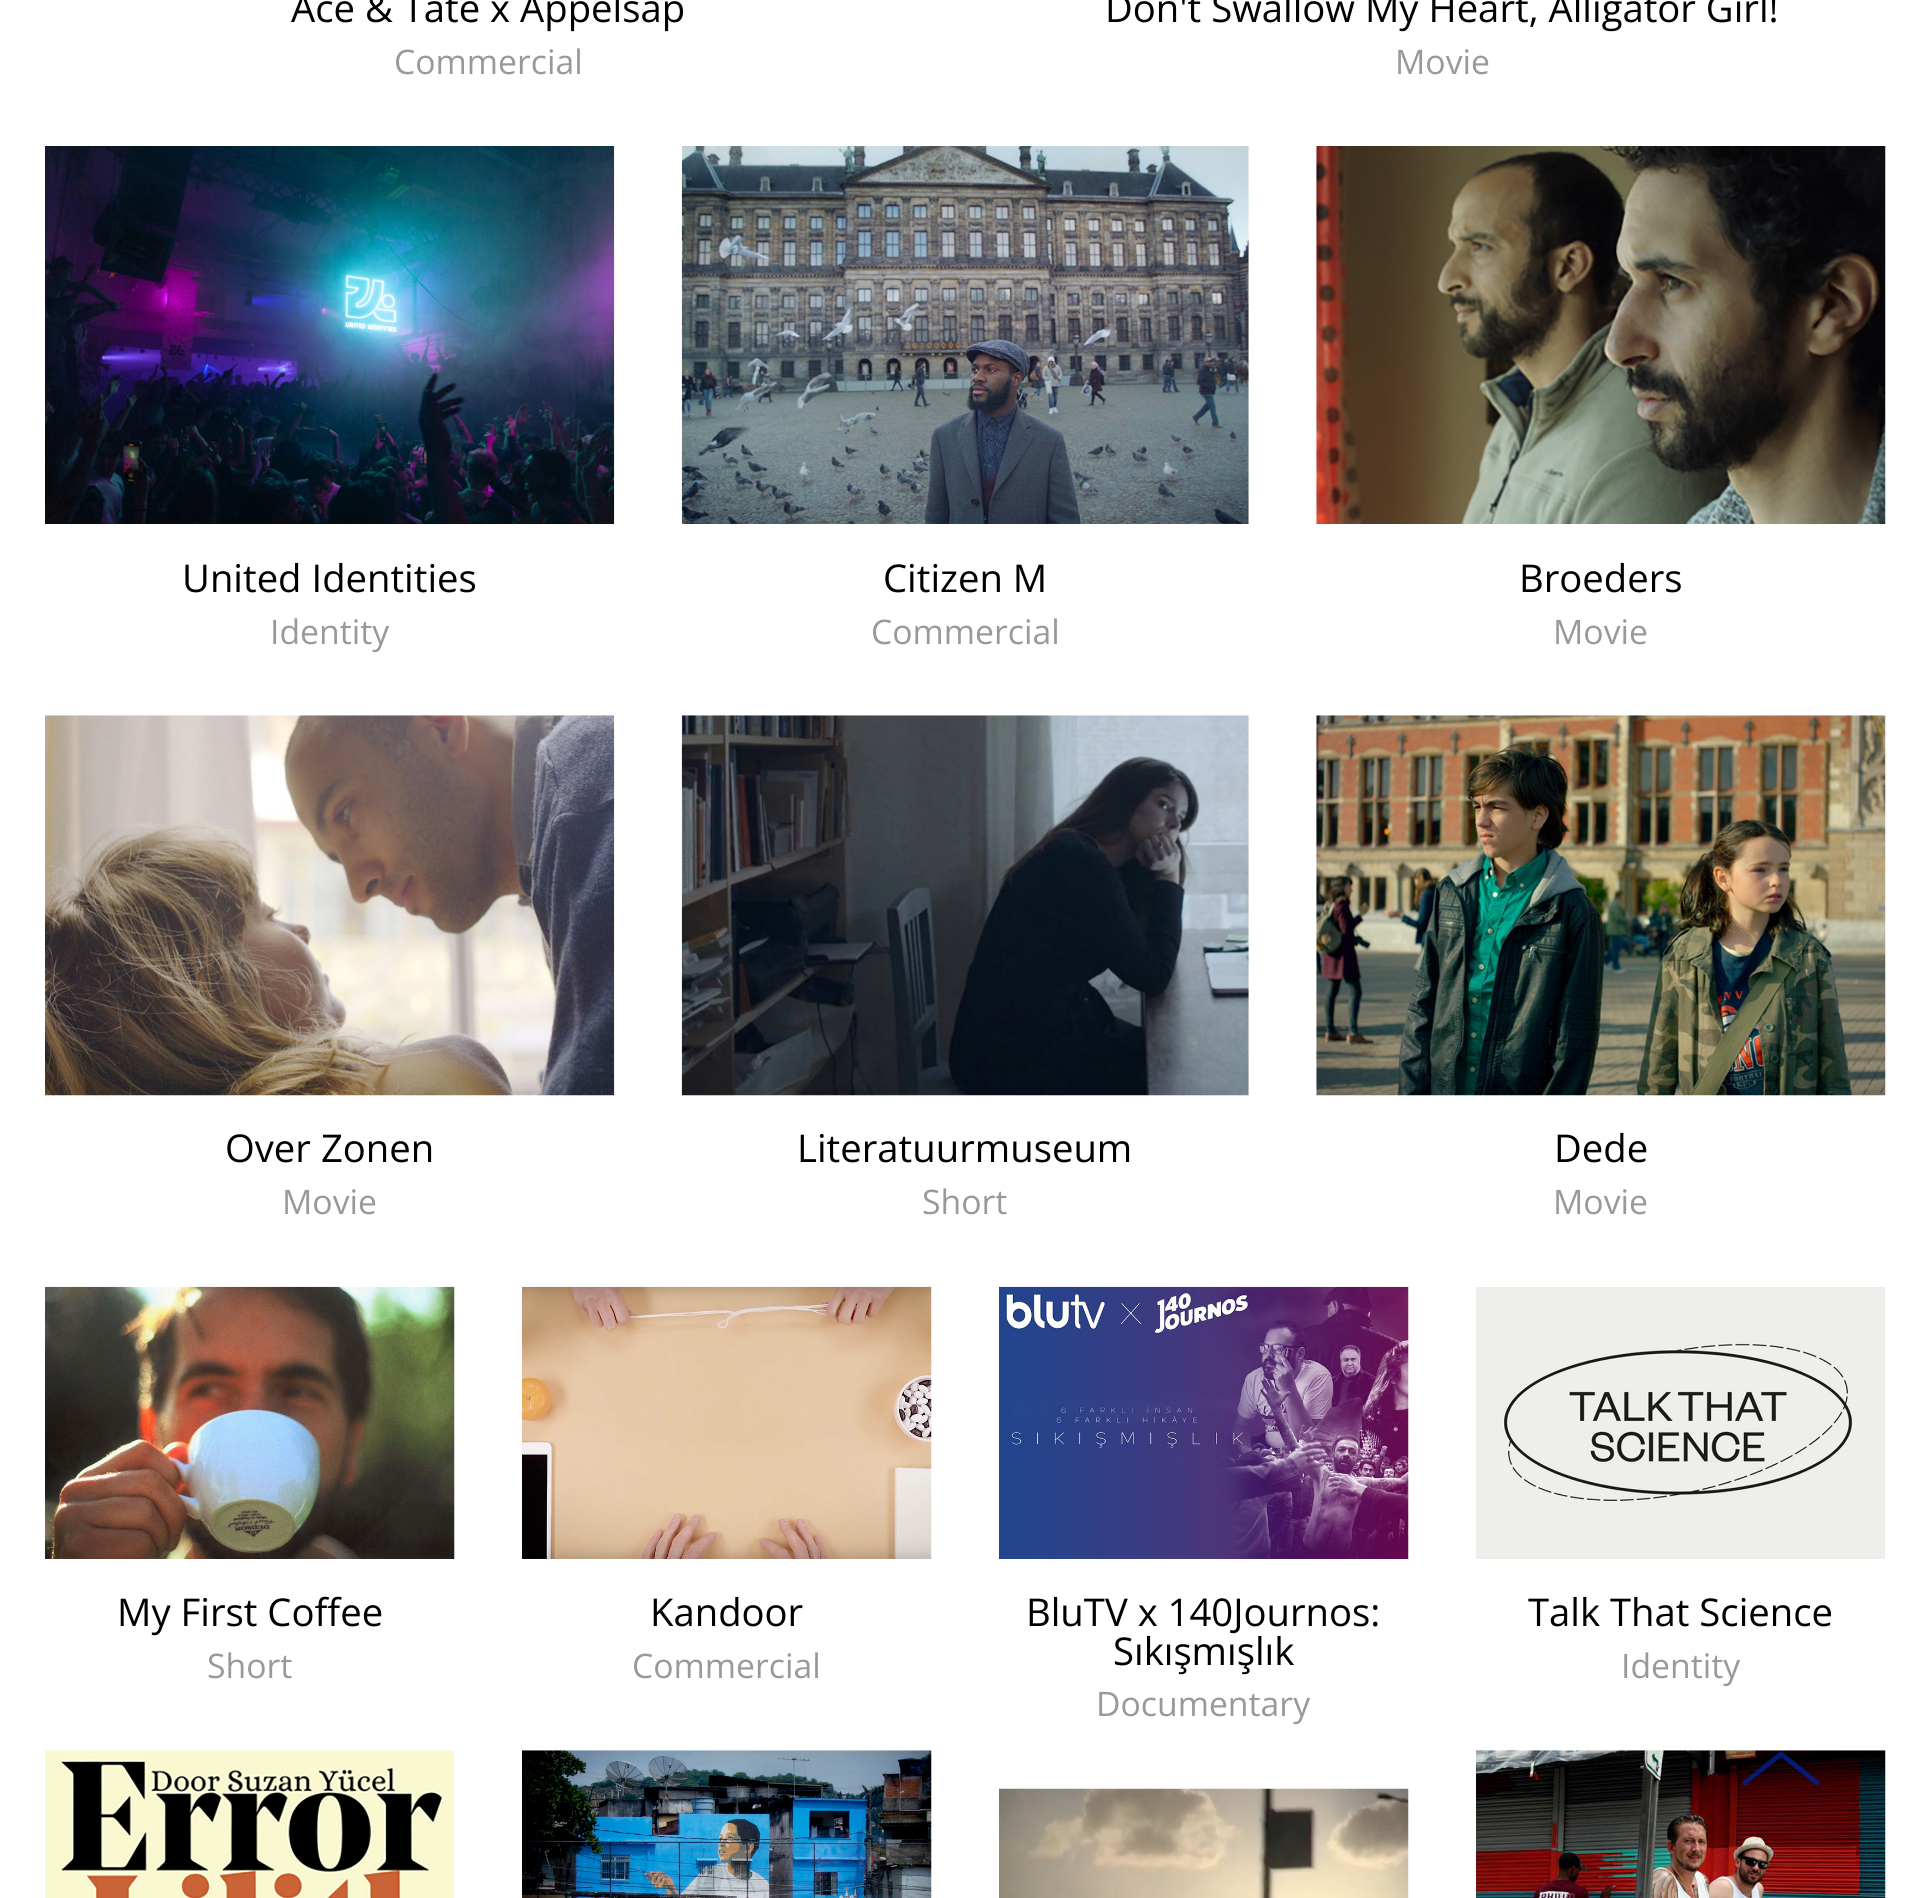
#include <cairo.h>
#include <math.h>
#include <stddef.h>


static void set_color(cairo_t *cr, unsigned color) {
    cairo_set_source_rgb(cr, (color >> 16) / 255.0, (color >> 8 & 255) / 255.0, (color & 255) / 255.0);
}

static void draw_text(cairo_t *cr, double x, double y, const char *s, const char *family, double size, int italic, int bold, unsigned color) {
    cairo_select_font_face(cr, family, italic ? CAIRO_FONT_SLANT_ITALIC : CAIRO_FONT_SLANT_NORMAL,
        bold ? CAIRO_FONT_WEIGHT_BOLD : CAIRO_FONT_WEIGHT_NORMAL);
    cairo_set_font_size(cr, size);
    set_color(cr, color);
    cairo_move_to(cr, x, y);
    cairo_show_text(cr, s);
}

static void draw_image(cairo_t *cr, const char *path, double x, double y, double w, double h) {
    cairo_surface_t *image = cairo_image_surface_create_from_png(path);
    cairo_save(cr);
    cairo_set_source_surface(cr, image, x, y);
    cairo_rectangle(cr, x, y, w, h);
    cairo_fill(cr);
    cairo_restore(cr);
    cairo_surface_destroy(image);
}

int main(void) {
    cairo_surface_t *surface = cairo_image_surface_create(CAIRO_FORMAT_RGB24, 1929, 1898);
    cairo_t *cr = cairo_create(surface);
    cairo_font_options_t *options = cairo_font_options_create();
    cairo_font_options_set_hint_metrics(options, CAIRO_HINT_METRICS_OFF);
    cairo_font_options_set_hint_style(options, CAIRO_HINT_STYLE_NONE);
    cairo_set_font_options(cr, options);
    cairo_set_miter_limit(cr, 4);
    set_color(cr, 0xFFFFFF);
    cairo_paint(cr);
    draw_text(cr, 291, 22, "Ace & Tate x Appelsap", "Open Sans", 38.25, 0, 0, 0x000000);
    draw_text(cr, 394, 74, "Commercial", "Open Sans", 33.75, 0, 0, 0x999999);
    draw_text(cr, 1105, 22, "Don't Swallow My Heart, Alligator Girl!", "Open Sans", 38.25, 0, 0, 0x000000);
    draw_text(cr, 1395, 74, "Movie", "Open Sans", 33.75, 0, 0, 0x999999);
    draw_image(cr, "assets/img1.png", 45, 146, 570, 378);
    draw_text(cr, 182, 592, "United Identities", "Open Sans", 38.25, 0, 0, 0x000000);
    draw_text(cr, 270, 644, "Identity", "Open Sans", 33.75, 0, 0, 0x999999);
    draw_image(cr, "assets/img2.png", 681, 146, 568, 378);
    draw_text(cr, 883, 592, "Citizen M", "Open Sans", 38.25, 0, 0, 0x000000);
    draw_text(cr, 871, 644, "Commercial", "Open Sans", 33.75, 0, 0, 0x999999);
    draw_image(cr, "assets/img3.png", 1316, 146, 570, 378);
    draw_text(cr, 1519, 592, "Broeders", "Open Sans", 38.25, 0, 0, 0x000000);
    draw_text(cr, 1553, 644, "Movie", "Open Sans", 33.75, 0, 0, 0x999999);
    draw_image(cr, "assets/img4.png", 45, 715, 570, 381);
    draw_text(cr, 225, 1162, "Over Zonen", "Open Sans", 38.25, 0, 0, 0x000000);
    draw_text(cr, 282, 1214, "Movie", "Open Sans", 33.75, 0, 0, 0x999999);
    draw_image(cr, "assets/img5.png", 681, 715, 568, 381);
    draw_text(cr, 797, 1162, "Literatuurmuseum", "Open Sans", 38.25, 0, 0, 0x000000);
    draw_text(cr, 922, 1214, "Short", "Open Sans", 33.75, 0, 0, 0x999999);
    draw_image(cr, "assets/img6.png", 1316, 715, 570, 381);
    draw_text(cr, 1554, 1162, "Dede", "Open Sans", 38.25, 0, 0, 0x000000);
    draw_text(cr, 1553, 1214, "Movie", "Open Sans", 33.75, 0, 0, 0x999999);
    draw_image(cr, "assets/img7.png", 45, 1286, 410, 273);
    draw_text(cr, 117, 1626, "My First Coffee", "Open Sans", 38.25, 0, 0, 0x000000);
    draw_text(cr, 207, 1678, "Short", "Open Sans", 33.75, 0, 0, 0x999999);
    draw_image(cr, "assets/img8.png", 522, 1286, 410, 273);
    draw_text(cr, 650, 1626, "Kandoor", "Open Sans", 38.25, 0, 0, 0x000000);
    draw_text(cr, 632, 1678, "Commercial", "Open Sans", 33.75, 0, 0, 0x999999);
    draw_image(cr, "assets/img9.png", 999, 1286, 410, 273);
    draw_text(cr, 1026, 1626, "BluTV x 140Journos:", "Open Sans", 38.25, 0, 0, 0x000000);
    draw_text(cr, 1113, 1665, "Sıkışmışlık", "Open Sans", 38.25, 0, 0, 0x000000);
    draw_text(cr, 1096, 1716, "Documentary", "Open Sans", 33.75, 0, 0, 0x999999);
    draw_image(cr, "assets/img10.png", 1476, 1287, 410, 272);
    draw_text(cr, 1528, 1626, "Talk That Science", "Open Sans", 38.25, 0, 0, 0x000000);
    draw_text(cr, 1621, 1678, "Identity", "Open Sans", 33.75, 0, 0, 0x999999);
    draw_image(cr, "assets/img11.png", 45, 1750, 410, 148);
    draw_image(cr, "assets/img12.png", 522, 1750, 410, 148);
    draw_image(cr, "assets/img13.png", 999, 1788, 410, 110);
    draw_image(cr, "assets/img14.png", 1476, 1750, 410, 148);
    cairo_set_source_rgba(cr, 0.004, 0.133, 0.588, 0.78);
    cairo_new_path(cr);
    cairo_move_to(cr, 1820, 1782);
    cairo_line_to(cr, 1817, 1786);
    cairo_line_to(cr, 1781, 1757);
    cairo_line_to(cr, 1744, 1786);
    cairo_line_to(cr, 1742, 1782);
    cairo_line_to(cr, 1781, 1751);
    cairo_close_path(cr);
    cairo_fill(cr);
    cairo_surface_write_to_png(surface, "output.png");
    cairo_font_options_destroy(options);
    cairo_destroy(cr);
    cairo_surface_destroy(surface);
    return 0;
}
